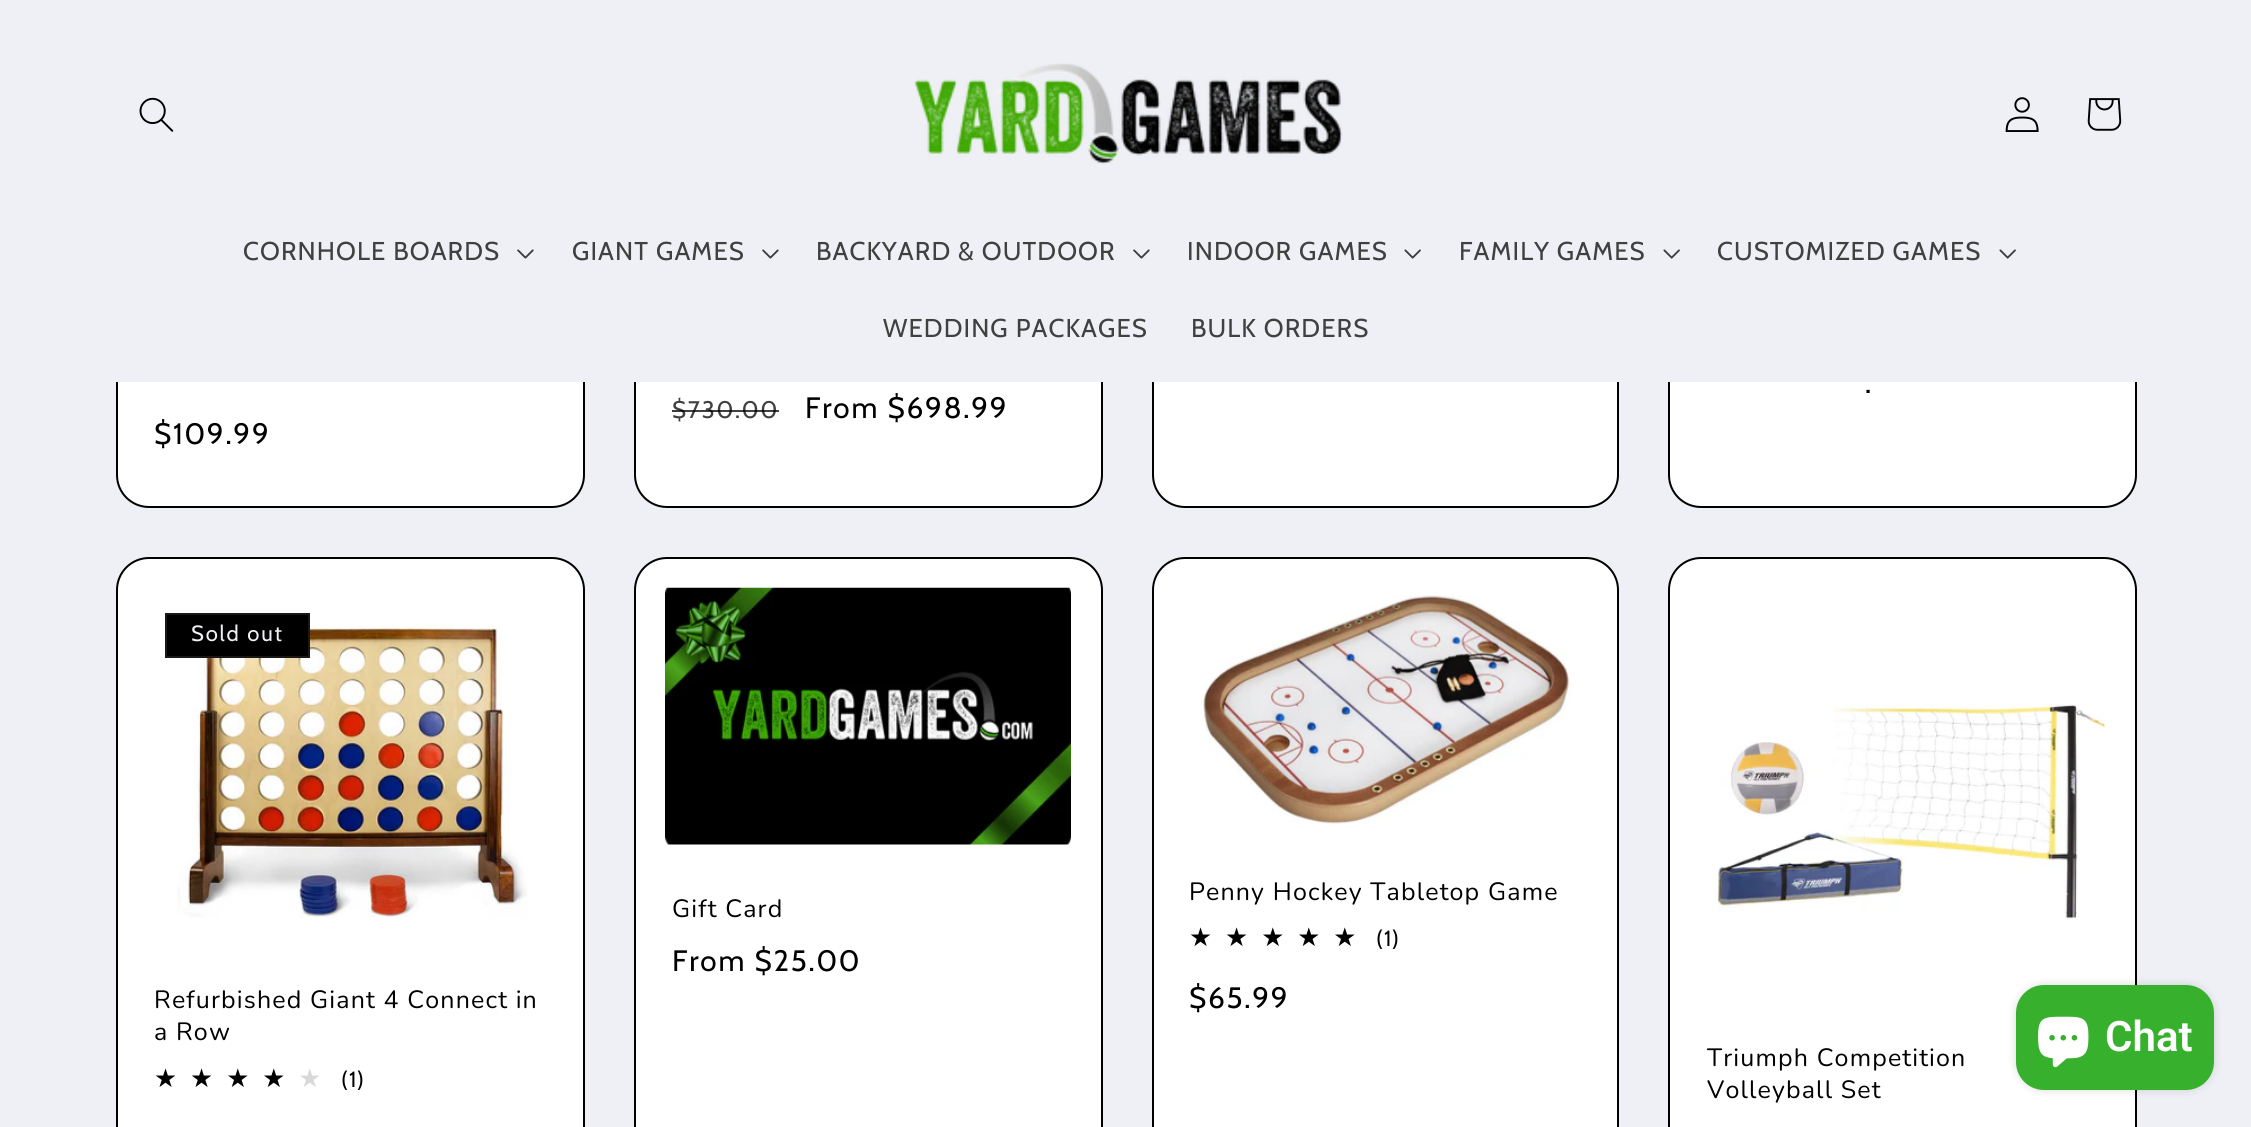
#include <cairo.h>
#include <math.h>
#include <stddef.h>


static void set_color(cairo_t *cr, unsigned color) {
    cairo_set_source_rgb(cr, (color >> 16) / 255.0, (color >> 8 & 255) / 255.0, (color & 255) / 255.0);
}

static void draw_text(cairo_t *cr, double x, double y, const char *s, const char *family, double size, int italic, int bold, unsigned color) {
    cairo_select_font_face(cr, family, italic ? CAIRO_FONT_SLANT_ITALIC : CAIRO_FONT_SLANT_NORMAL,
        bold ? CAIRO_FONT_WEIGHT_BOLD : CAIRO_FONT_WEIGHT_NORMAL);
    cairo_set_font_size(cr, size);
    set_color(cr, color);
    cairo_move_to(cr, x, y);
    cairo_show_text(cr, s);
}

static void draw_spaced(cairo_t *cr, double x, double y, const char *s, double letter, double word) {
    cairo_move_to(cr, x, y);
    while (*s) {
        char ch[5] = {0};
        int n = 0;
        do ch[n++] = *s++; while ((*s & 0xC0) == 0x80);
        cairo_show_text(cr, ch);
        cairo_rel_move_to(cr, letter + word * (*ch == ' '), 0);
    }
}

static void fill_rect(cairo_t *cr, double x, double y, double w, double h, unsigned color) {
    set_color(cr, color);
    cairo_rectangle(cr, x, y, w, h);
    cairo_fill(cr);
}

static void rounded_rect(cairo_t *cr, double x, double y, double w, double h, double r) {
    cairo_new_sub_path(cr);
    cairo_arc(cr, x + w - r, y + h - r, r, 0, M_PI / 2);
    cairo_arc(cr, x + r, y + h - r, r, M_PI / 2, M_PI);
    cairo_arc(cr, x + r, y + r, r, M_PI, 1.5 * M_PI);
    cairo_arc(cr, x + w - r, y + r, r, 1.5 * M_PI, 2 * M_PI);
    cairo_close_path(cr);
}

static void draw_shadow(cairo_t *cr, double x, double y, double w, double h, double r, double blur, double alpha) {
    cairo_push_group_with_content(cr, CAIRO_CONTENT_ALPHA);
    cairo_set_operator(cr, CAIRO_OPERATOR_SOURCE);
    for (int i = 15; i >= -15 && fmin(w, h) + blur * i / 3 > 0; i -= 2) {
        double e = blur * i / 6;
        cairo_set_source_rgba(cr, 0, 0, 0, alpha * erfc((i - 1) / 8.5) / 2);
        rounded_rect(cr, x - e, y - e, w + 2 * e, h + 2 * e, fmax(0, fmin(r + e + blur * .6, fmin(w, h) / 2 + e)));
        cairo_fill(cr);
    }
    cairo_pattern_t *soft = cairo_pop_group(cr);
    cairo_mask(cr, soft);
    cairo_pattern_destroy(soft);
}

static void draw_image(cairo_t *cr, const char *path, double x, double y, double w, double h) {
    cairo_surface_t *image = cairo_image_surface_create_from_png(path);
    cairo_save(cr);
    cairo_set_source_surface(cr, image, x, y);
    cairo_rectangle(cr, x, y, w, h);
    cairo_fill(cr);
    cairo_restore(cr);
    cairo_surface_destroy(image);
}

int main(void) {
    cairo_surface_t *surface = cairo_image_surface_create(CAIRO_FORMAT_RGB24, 2251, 1127);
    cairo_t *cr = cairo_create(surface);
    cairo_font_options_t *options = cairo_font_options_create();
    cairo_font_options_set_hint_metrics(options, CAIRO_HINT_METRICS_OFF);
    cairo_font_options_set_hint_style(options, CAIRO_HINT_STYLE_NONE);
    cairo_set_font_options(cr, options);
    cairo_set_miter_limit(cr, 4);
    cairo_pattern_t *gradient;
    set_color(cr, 0xEFF0F5);
    cairo_paint(cr);
    set_color(cr, 0xFFFFFF);
    rounded_rect(cr, 1153, -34, 465, 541, 32);
    cairo_fill_preserve(cr);
    set_color(cr, 0x000000);
    cairo_stroke(cr);
    set_color(cr, 0xFFFFFF);
    rounded_rect(cr, 1669, -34, 467, 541, 32);
    cairo_fill_preserve(cr);
    set_color(cr, 0x000000);
    cairo_stroke(cr);
    set_color(cr, 0xFFFFFF);
    rounded_rect(cr, 635, -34, 467, 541, 32);
    cairo_fill_preserve(cr);
    set_color(cr, 0x000000);
    cairo_stroke(cr);
    set_color(cr, 0xFFFFFF);
    rounded_rect(cr, 117, -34, 467, 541, 32);
    cairo_fill_preserve(cr);
    set_color(cr, 0x000000);
    cairo_stroke(cr);
    fill_rect(cr, 116, 0, 2021, 382, 0xEFF0F5);
    draw_image(cr, "assets/img1.png", 139, 97, 35, 35);
    draw_image(cr, "assets/img2.png", 914, 63, 429, 101);
    draw_image(cr, "assets/img3.png", 2005, 97, 34, 35);
    draw_image(cr, "assets/img4.png", 2087, 98, 35, 33);
    cairo_select_font_face(cr, "Cabin", CAIRO_FONT_SLANT_NORMAL, CAIRO_FONT_WEIGHT_NORMAL);
    cairo_set_font_size(cr, 25.75);
    set_color(cr, 0x404040);
    draw_spaced(cr, 243, 260, "CORNHOLE BOARDS", 1.1, 0);
    draw_image(cr, "assets/img5.png", 517, 249, 17, 10);
    draw_spaced(cr, 572, 260, "GIANT GAMES", 1.1, 0);
    draw_image(cr, "assets/img5.png", 762, 249, 17, 10);
    draw_spaced(cr, 816, 260, "BACKYARD & OUTDOOR", 1.1, 0);
    draw_image(cr, "assets/img5.png", 1133, 249, 17, 10);
    draw_spaced(cr, 1187, 260, "INDOOR GAMES", 1.1, 0);
    draw_image(cr, "assets/img6.png", 1404, 249, 17, 10);
    draw_spaced(cr, 1459, 260, "FAMILY GAMES", 1.1, 0);
    draw_image(cr, "assets/img6.png", 1663, 249, 17, 10);
    draw_spaced(cr, 1717, 260, "CUSTOMIZED GAMES", 1.1, 0);
    draw_image(cr, "assets/img6.png", 1999, 249, 17, 10);
    draw_spaced(cr, 883, 337, "WEDDING PACKAGES", 1.1, 0);
    draw_spaced(cr, 1191, 337, "BULK ORDERS", 1.1, 0);
    cairo_set_font_size(cr, 29.5);
    set_color(cr, 0x000000);
    draw_spaced(cr, 1865, 393, ".", 1.8, 0);
    cairo_set_font_size(cr, 24);
    set_color(cr, 0x404040);
    draw_spaced(cr, 672, 418, "$730.00", 1.8, 0);
    cairo_set_source_rgba(cr, 0, 0, 0, 0.75);
    cairo_rectangle(cr, 672, 410, 107, 2);
    cairo_fill(cr);
    cairo_set_font_size(cr, 29.5);
    set_color(cr, 0x000000);
    draw_spaced(cr, 805, 418, "From $698.99", 1.8, 0);
    draw_spaced(cr, 154, 444, "$109.99", 1.8, 0);
    set_color(cr, 0xFFFFFF);
    rounded_rect(cr, 117, 558, 467, 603, 32);
    cairo_fill_preserve(cr);
    set_color(cr, 0x000000);
    cairo_stroke(cr);
    draw_image(cr, "assets/img7.png", 177, 625, 351, 293);
    cairo_rectangle(cr, 166, 614, 143, 43);
    cairo_fill_preserve(cr);
    set_color(cr, 0x181819);
    cairo_stroke(cr);
    cairo_set_font_size(cr, 22);
    set_color(cr, 0xEFF0F5);
    draw_spaced(cr, 191, 641, "Sold out", 1.8, 0);
    cairo_select_font_face(cr, "Nunito ExtraLight", CAIRO_FONT_SLANT_NORMAL, CAIRO_FONT_WEIGHT_NORMAL);
    cairo_set_font_size(cr, 25);
    set_color(cr, 0x000000);
    draw_spaced(cr, 154, 1008, "Refurbished Giant 4 Connect in", 1.15, 0);
    draw_spaced(cr, 154, 1040, "a Row", 1.15, 0);
    cairo_select_font_face(cr, "DejaVu Sans", CAIRO_FONT_SLANT_NORMAL, CAIRO_FONT_WEIGHT_NORMAL);
    cairo_set_font_size(cr, 25.75);
    gradient = cairo_pattern_create_linear(154, 1078, 334, 1078);
    cairo_pattern_add_color_stop_rgba(gradient, 0.8, 0, 0, 0, 1);
    cairo_pattern_add_color_stop_rgba(gradient, 0.8, 0.851, 0.851, 0.851, 1);
    cairo_set_source(cr, gradient);
    cairo_pattern_destroy(gradient);
    draw_spaced(cr, 154, 1087, "★★★★★", 13, 0);
    cairo_select_font_face(cr, "Cabin", CAIRO_FONT_SLANT_NORMAL, CAIRO_FONT_WEIGHT_NORMAL);
    cairo_set_font_size(cr, 22);
    set_color(cr, 0x000000);
    draw_spaced(cr, 341, 1087, "(1)", 1, 0);
    set_color(cr, 0xFFFFFF);
    rounded_rect(cr, 635, 558, 467, 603, 32);
    cairo_fill_preserve(cr);
    set_color(cr, 0x000000);
    cairo_stroke(cr);
    draw_image(cr, "assets/img8.png", 665, 587, 406, 258);
    cairo_select_font_face(cr, "Nunito ExtraLight", CAIRO_FONT_SLANT_NORMAL, CAIRO_FONT_WEIGHT_NORMAL);
    cairo_set_font_size(cr, 25);
    draw_spaced(cr, 672, 917, "Gift Card", 1.15, 0);
    cairo_select_font_face(cr, "Cabin", CAIRO_FONT_SLANT_NORMAL, CAIRO_FONT_WEIGHT_NORMAL);
    cairo_set_font_size(cr, 29.5);
    draw_spaced(cr, 672, 971, "From $25.00", 1.8, 0);
    set_color(cr, 0xFFFFFF);
    rounded_rect(cr, 1153, 558, 465, 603, 32);
    cairo_fill_preserve(cr);
    set_color(cr, 0x000000);
    cairo_stroke(cr);
    draw_image(cr, "assets/img9.png", 1201, 595, 370, 230);
    cairo_select_font_face(cr, "Nunito ExtraLight", CAIRO_FONT_SLANT_NORMAL, CAIRO_FONT_WEIGHT_NORMAL);
    cairo_set_font_size(cr, 25);
    draw_spaced(cr, 1189, 900, "Penny Hockey Tabletop Game", 1.15, 0);
    cairo_select_font_face(cr, "DejaVu Sans", CAIRO_FONT_SLANT_NORMAL, CAIRO_FONT_WEIGHT_NORMAL);
    cairo_set_font_size(cr, 25.75);
    gradient = cairo_pattern_create_linear(1189, 938, 1369, 938);
    cairo_pattern_add_color_stop_rgba(gradient, 1, 0, 0, 0, 1);
    cairo_pattern_add_color_stop_rgba(gradient, 1, 0.851, 0.851, 0.851, 1);
    cairo_set_source(cr, gradient);
    cairo_pattern_destroy(gradient);
    draw_spaced(cr, 1189, 946, "★★★★★", 13, 0);
    cairo_select_font_face(cr, "Cabin", CAIRO_FONT_SLANT_NORMAL, CAIRO_FONT_WEIGHT_NORMAL);
    cairo_set_font_size(cr, 22);
    set_color(cr, 0x000000);
    draw_spaced(cr, 1376, 946, "(1)", 1, 0);
    cairo_set_font_size(cr, 29.5);
    draw_spaced(cr, 1189, 1008, "$65.99", 1.8, 0);
    set_color(cr, 0xFFFFFF);
    rounded_rect(cr, 1669, 558, 467, 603, 32);
    cairo_fill_preserve(cr);
    set_color(cr, 0x000000);
    cairo_stroke(cr);
    draw_image(cr, "assets/img10.png", 1717, 704, 388, 216);
    cairo_select_font_face(cr, "Nunito ExtraLight", CAIRO_FONT_SLANT_NORMAL, CAIRO_FONT_WEIGHT_NORMAL);
    cairo_set_font_size(cr, 25);
    draw_spaced(cr, 1707, 1066, "Triumph Competition", 1.15, 0);
    draw_spaced(cr, 1707, 1098, "Volleyball Set", 1.15, 0);
    set_color(cr, 0x000000);
    draw_shadow(cr, 2016, 985, 198, 105, 28, 4.5, 0.15);
    set_color(cr, 0x37B12D);
    rounded_rect(cr, 2016, 985, 198, 105, 28);
    cairo_fill(cr);
    draw_image(cr, "assets/img11.png", 2038, 1016, 51, 52);
    draw_text(cr, 2105, 1051, "Chat", "Roboto SemiBold", 42, 0, 0, 0xFFFFFF);
    cairo_surface_write_to_png(surface, "output.png");
    cairo_font_options_destroy(options);
    cairo_destroy(cr);
    cairo_surface_destroy(surface);
    return 0;
}
